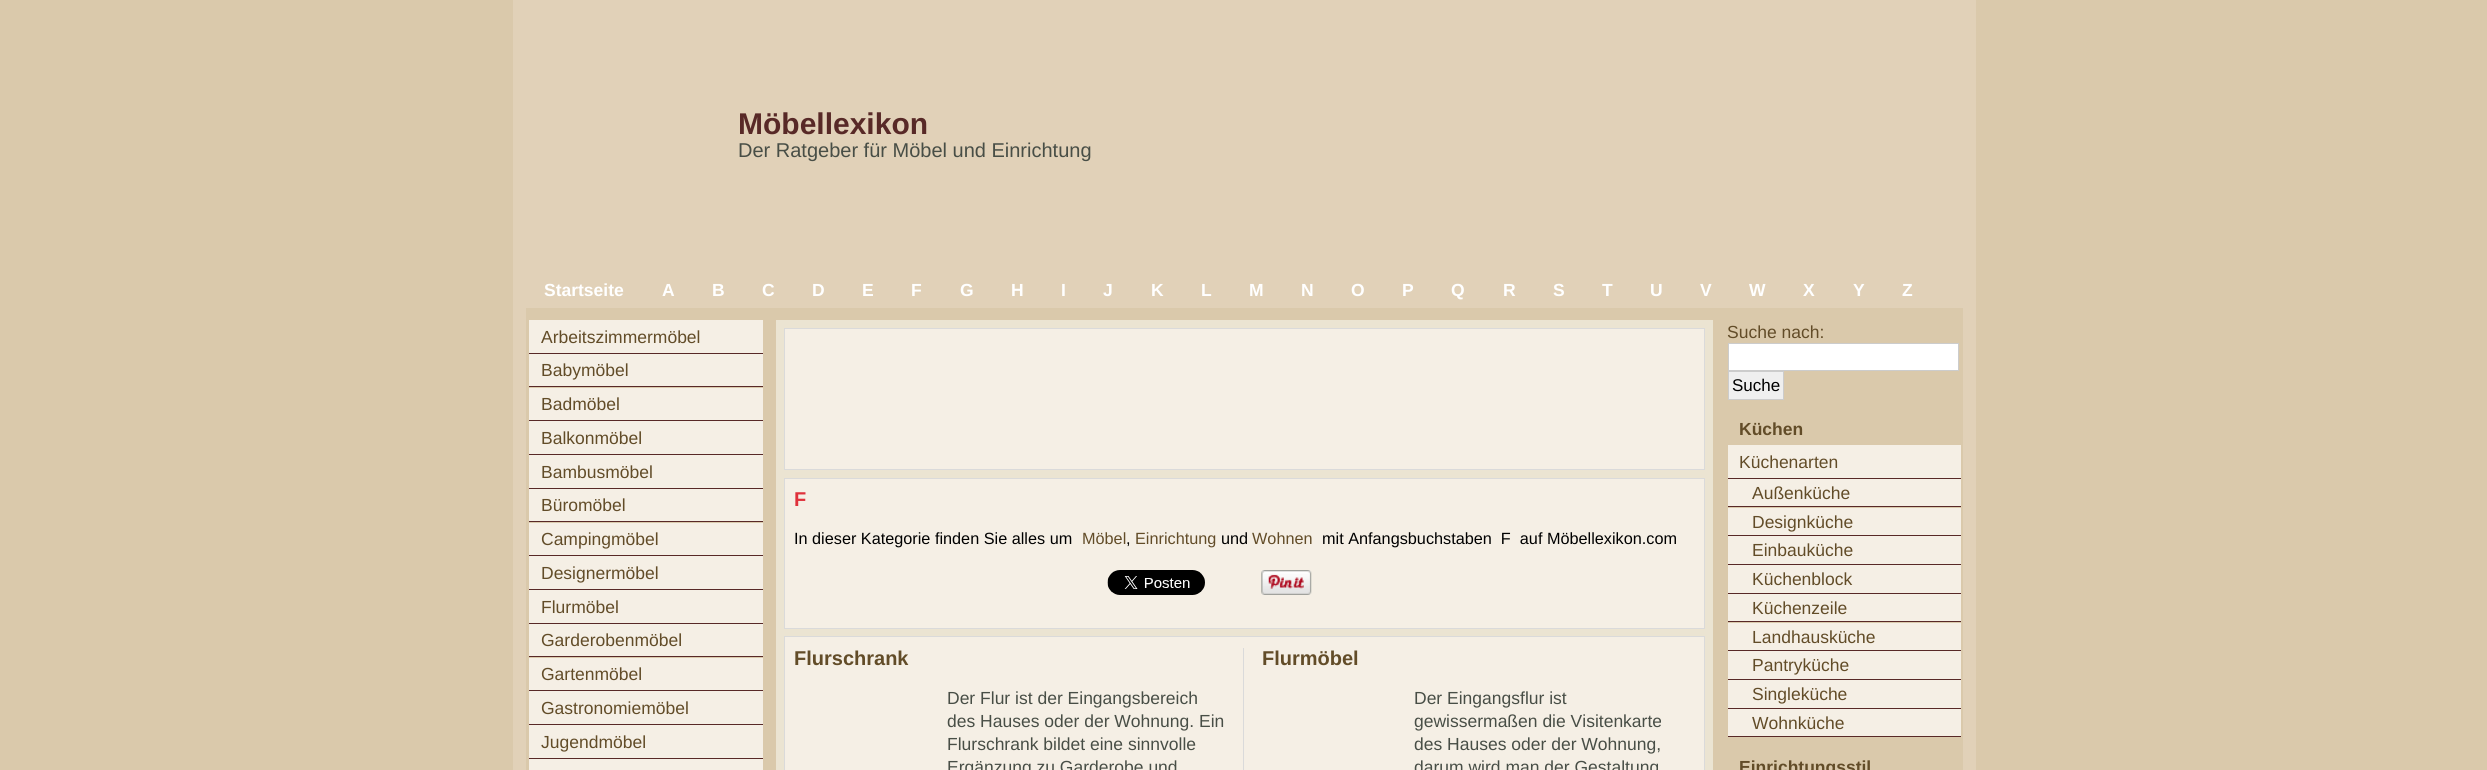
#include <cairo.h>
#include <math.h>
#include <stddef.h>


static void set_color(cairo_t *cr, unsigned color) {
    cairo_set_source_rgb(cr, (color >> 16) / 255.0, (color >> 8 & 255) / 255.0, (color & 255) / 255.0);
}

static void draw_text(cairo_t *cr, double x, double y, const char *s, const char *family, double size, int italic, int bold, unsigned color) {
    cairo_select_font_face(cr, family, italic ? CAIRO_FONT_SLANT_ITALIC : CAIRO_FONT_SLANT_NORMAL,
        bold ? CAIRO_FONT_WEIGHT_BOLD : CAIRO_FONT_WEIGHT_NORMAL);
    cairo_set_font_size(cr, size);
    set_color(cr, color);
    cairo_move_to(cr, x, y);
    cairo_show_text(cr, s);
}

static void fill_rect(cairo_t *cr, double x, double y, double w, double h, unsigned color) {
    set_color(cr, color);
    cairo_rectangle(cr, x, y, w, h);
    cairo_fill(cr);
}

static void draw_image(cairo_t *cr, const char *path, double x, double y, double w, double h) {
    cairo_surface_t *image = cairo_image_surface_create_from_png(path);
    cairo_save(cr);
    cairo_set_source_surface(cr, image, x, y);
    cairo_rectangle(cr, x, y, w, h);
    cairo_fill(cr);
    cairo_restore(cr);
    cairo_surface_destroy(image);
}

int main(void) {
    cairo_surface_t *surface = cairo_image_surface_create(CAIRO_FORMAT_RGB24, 2487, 770);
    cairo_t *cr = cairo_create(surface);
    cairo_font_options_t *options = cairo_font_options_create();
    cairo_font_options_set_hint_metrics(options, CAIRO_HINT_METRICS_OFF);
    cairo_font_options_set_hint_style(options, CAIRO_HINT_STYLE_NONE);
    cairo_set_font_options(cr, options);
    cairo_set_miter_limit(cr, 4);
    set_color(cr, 0xDAC9AB);
    cairo_paint(cr);
    fill_rect(cr, 513, 0, 1463, 770, 0xE1D1B8);
    draw_text(cr, 738, 134, "Möbellexikon", "Liberation Sans", 30, 0, 1, 0x582927);
    draw_text(cr, 738, 157, "Der Ratgeber für Möbel und Einrichtung", "Liberation Sans", 20, 0, 0, 0x484E46);
    draw_text(cr, 544, 296, "Startseite", "Liberation Sans", 17.5, 0, 1, 0xFFFFFF);
    draw_text(cr, 662, 296, "A", "Liberation Sans", 17.5, 0, 1, 0xFFFFFF);
    draw_text(cr, 712, 296, "B", "Liberation Sans", 17.5, 0, 1, 0xFFFFFF);
    draw_text(cr, 762, 296, "C", "Liberation Sans", 17.5, 0, 1, 0xFFFFFF);
    draw_text(cr, 812, 296, "D", "Liberation Sans", 17.5, 0, 1, 0xFFFFFF);
    draw_text(cr, 862, 296, "E", "Liberation Sans", 17.5, 0, 1, 0xFFFFFF);
    draw_text(cr, 911, 296, "F", "Liberation Sans", 17.5, 0, 1, 0xFFFFFF);
    draw_text(cr, 960, 296, "G", "Liberation Sans", 17.5, 0, 1, 0xFFFFFF);
    draw_text(cr, 1011, 296, "H", "Liberation Sans", 17.5, 0, 1, 0xFFFFFF);
    draw_text(cr, 1061, 296, "I", "Liberation Sans", 17.5, 0, 1, 0xFFFFFF);
    draw_text(cr, 1103, 296, "J", "Liberation Sans", 17.5, 0, 1, 0xFFFFFF);
    draw_text(cr, 1151, 296, "K", "Liberation Sans", 17.5, 0, 1, 0xFFFFFF);
    draw_text(cr, 1201, 296, "L", "Liberation Sans", 17.5, 0, 1, 0xFFFFFF);
    draw_text(cr, 1249, 296, "M", "Liberation Sans", 17.5, 0, 1, 0xFFFFFF);
    draw_text(cr, 1301, 296, "N", "Liberation Sans", 17.5, 0, 1, 0xFFFFFF);
    draw_text(cr, 1351, 296, "O", "Liberation Sans", 17.5, 0, 1, 0xFFFFFF);
    draw_text(cr, 1402, 296, "P", "Liberation Sans", 17.5, 0, 1, 0xFFFFFF);
    draw_text(cr, 1451, 296, "Q", "Liberation Sans", 17.5, 0, 1, 0xFFFFFF);
    draw_text(cr, 1503, 296, "R", "Liberation Sans", 17.5, 0, 1, 0xFFFFFF);
    draw_text(cr, 1553, 296, "S", "Liberation Sans", 17.5, 0, 1, 0xFFFFFF);
    draw_text(cr, 1602, 296, "T", "Liberation Sans", 17.5, 0, 1, 0xFFFFFF);
    draw_text(cr, 1650, 296, "U", "Liberation Sans", 17.5, 0, 1, 0xFFFFFF);
    draw_text(cr, 1700, 296, "V", "Liberation Sans", 17.5, 0, 1, 0xFFFFFF);
    draw_text(cr, 1749, 296, "W", "Liberation Sans", 17.5, 0, 1, 0xFFFFFF);
    draw_text(cr, 1803, 296, "X", "Liberation Sans", 17.5, 0, 1, 0xFFFFFF);
    draw_text(cr, 1853, 296, "Y", "Liberation Sans", 17.5, 0, 1, 0xFFFFFF);
    draw_text(cr, 1902, 296, "Z", "Liberation Sans", 17.5, 0, 1, 0xFFFFFF);
    fill_rect(cr, 526, 308, 1437, 462, 0xDAC9AB);
    fill_rect(cr, 529, 353, 234, 1, 0x582927);
    fill_rect(cr, 529, 320, 234, 33, 0xF5EFE5);
    draw_text(cr, 541, 343, "Arbeitszimmermöbel", "Liberation Sans", 17.5, 0, 0, 0x624C28);
    fill_rect(cr, 529, 386, 234, 1, 0x582927);
    fill_rect(cr, 529, 354, 234, 32, 0xF5EFE5);
    draw_text(cr, 541, 376, "Babymöbel", "Liberation Sans", 17.5, 0, 0, 0x624C28);
    fill_rect(cr, 529, 420, 234, 1, 0x582927);
    fill_rect(cr, 529, 388, 234, 32, 0xF5EFE5);
    draw_text(cr, 541, 410, "Badmöbel", "Liberation Sans", 17.5, 0, 0, 0x624C28);
    fill_rect(cr, 529, 454, 234, 1, 0x582927);
    fill_rect(cr, 529, 421, 234, 33, 0xF5EFE5);
    draw_text(cr, 541, 444, "Balkonmöbel", "Liberation Sans", 17.5, 0, 0, 0x624C28);
    fill_rect(cr, 529, 488, 234, 1, 0x582927);
    fill_rect(cr, 529, 455, 234, 33, 0xF5EFE5);
    draw_text(cr, 541, 478, "Bambusmöbel", "Liberation Sans", 17.5, 0, 0, 0x624C28);
    fill_rect(cr, 529, 521, 234, 1, 0x582927);
    fill_rect(cr, 529, 489, 234, 32, 0xF5EFE5);
    draw_text(cr, 541, 511, "Büromöbel", "Liberation Sans", 17.5, 0, 0, 0x624C28);
    fill_rect(cr, 529, 555, 234, 1, 0x582927);
    fill_rect(cr, 529, 523, 234, 32, 0xF5EFE5);
    draw_text(cr, 541, 545, "Campingmöbel", "Liberation Sans", 17.5, 0, 0, 0x624C28);
    fill_rect(cr, 529, 589, 234, 1, 0x582927);
    fill_rect(cr, 529, 556, 234, 33, 0xF5EFE5);
    draw_text(cr, 541, 579, "Designermöbel", "Liberation Sans", 17.5, 0, 0, 0x624C28);
    fill_rect(cr, 529, 623, 234, 1, 0x582927);
    fill_rect(cr, 529, 590, 234, 33, 0xF5EFE5);
    draw_text(cr, 541, 613, "Flurmöbel", "Liberation Sans", 17.5, 0, 0, 0x624C28);
    fill_rect(cr, 529, 656, 234, 1, 0x582927);
    fill_rect(cr, 529, 624, 234, 32, 0xF5EFE5);
    draw_text(cr, 541, 646, "Garderobenmöbel", "Liberation Sans", 17.5, 0, 0, 0x624C28);
    fill_rect(cr, 529, 690, 234, 1, 0x582927);
    fill_rect(cr, 529, 658, 234, 32, 0xF5EFE5);
    draw_text(cr, 541, 680, "Gartenmöbel", "Liberation Sans", 17.5, 0, 0, 0x624C28);
    fill_rect(cr, 529, 724, 234, 1, 0x582927);
    fill_rect(cr, 529, 691, 234, 33, 0xF5EFE5);
    draw_text(cr, 541, 714, "Gastronomiemöbel", "Liberation Sans", 17.5, 0, 0, 0x624C28);
    fill_rect(cr, 529, 758, 234, 1, 0x582927);
    fill_rect(cr, 529, 725, 234, 33, 0xF5EFE5);
    draw_text(cr, 541, 748, "Jugendmöbel", "Liberation Sans", 17.5, 0, 0, 0x624C28);
    fill_rect(cr, 529, 759, 234, 11, 0xF5EFE5);
    fill_rect(cr, 776, 320, 937, 450, 0xEBE4D2);
    set_color(cr, 0xF5EFE5);
    cairo_rectangle(cr, 784.5, 328.5, 920, 141);
    cairo_fill_preserve(cr);
    set_color(cr, 0xDADADA);
    cairo_set_line_width(cr, 1);
    cairo_stroke(cr);
    set_color(cr, 0xF5EFE5);
    cairo_rectangle(cr, 784.5, 478.5, 920, 150);
    cairo_fill_preserve(cr);
    set_color(cr, 0xDADADA);
    cairo_stroke(cr);
    draw_text(cr, 794, 506, "F", "Liberation Sans", 20, 0, 1, 0xDF313B);
    draw_text(cr, 794, 544, "In dieser Kategorie finden Sie alles um", "Liberation Sans", 16.25, 0, 0, 0x000000);
    draw_text(cr, 1082, 544, "Möbel", "Liberation Sans", 16.25, 0, 0, 0x624C28);
    draw_text(cr, 1126, 544, ",", "Liberation Sans", 16.25, 0, 0, 0x000000);
    draw_text(cr, 1135, 544, "Einrichtung", "Liberation Sans", 16.25, 0, 0, 0x624C28);
    draw_text(cr, 1221, 544, "und", "Liberation Sans", 16.25, 0, 0, 0x000000);
    draw_text(cr, 1252, 544, "Wohnen", "Liberation Sans", 16.25, 0, 0, 0x624C28);
    draw_text(cr, 1322, 544, "mit Anfangsbuchstaben  F  auf Möbellexikon.com", "Liberation Sans", 16.25, 0, 0, 0x000000);
    draw_image(cr, "assets/img1.png", 1107, 570, 98, 25);
    draw_image(cr, "assets/img2.png", 1261, 570, 51, 25);
    set_color(cr, 0xF5EFE5);
    cairo_rectangle(cr, 784.5, 636.5, 920, 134);
    cairo_fill_preserve(cr);
    set_color(cr, 0xDADADA);
    cairo_stroke(cr);
    fill_rect(cr, 1243, 648, 1, 122, 0xDADADA);
    draw_text(cr, 794, 665, "Flurschrank", "Liberation Sans", 20, 0, 1, 0x624C28);
    draw_text(cr, 947, 704, "Der Flur ist der Eingangsbereich", "Liberation Sans", 17.5, 0, 0, 0x484E46);
    draw_text(cr, 947, 727, "des Hauses oder der Wohnung. Ein", "Liberation Sans", 17.5, 0, 0, 0x484E46);
    draw_text(cr, 947, 750, "Flurschrank bildet eine sinnvolle", "Liberation Sans", 17.5, 0, 0, 0x484E46);
    draw_text(cr, 947, 773, "Ergänzung zu Garderobe und", "Liberation Sans", 17.5, 0, 0, 0x484E46);
    draw_text(cr, 1262, 665, "Flurmöbel", "Liberation Sans", 20, 0, 1, 0x624C28);
    draw_text(cr, 1414, 704, "Der Eingangsflur ist", "Liberation Sans", 17.5, 0, 0, 0x484E46);
    draw_text(cr, 1414, 727, "gewissermaßen die Visitenkarte", "Liberation Sans", 17.5, 0, 0, 0x484E46);
    draw_text(cr, 1414, 750, "des Hauses oder der Wohnung,", "Liberation Sans", 17.5, 0, 0, 0x484E46);
    draw_text(cr, 1414, 773, "darum wird man der Gestaltung", "Liberation Sans", 17.5, 0, 0, 0x484E46);
    draw_text(cr, 1727, 338, "Suche nach:", "Liberation Sans", 17.5, 0, 0, 0x624C28);
    set_color(cr, 0xFFFFFF);
    cairo_rectangle(cr, 1728.5, 343.5, 230, 27);
    cairo_fill_preserve(cr);
    set_color(cr, 0xCCCCCC);
    cairo_stroke(cr);
    set_color(cr, 0xEFEFEF);
    cairo_rectangle(cr, 1728.5, 371.5, 55, 28);
    cairo_fill_preserve(cr);
    set_color(cr, 0xCCCCCC);
    cairo_stroke(cr);
    draw_text(cr, 1732, 391, "Suche", "Liberation Sans", 17, 0, 0, 0x000000);
    draw_text(cr, 1739, 435, "Küchen", "Liberation Sans", 17.5, 0, 1, 0x624C28);
    fill_rect(cr, 1728, 736, 233, 1, 0x582927);
    fill_rect(cr, 1728, 445, 233, 33, 0xF5EFE5);
    draw_text(cr, 1739, 468, "Küchenarten", "Liberation Sans", 17.5, 0, 0, 0x624C28);
    fill_rect(cr, 1728, 478, 233, 1, 0x582927);
    fill_rect(cr, 1728, 479, 233, 27, 0xF5EFE5);
    draw_text(cr, 1752, 499, "Außenküche", "Liberation Sans", 17.5, 0, 0, 0x624C28);
    fill_rect(cr, 1728, 506, 233, 1, 0x582927);
    fill_rect(cr, 1728, 508, 233, 27, 0xF5EFE5);
    draw_text(cr, 1752, 528, "Designküche", "Liberation Sans", 17.5, 0, 0, 0x624C28);
    fill_rect(cr, 1728, 535, 233, 1, 0x582927);
    fill_rect(cr, 1728, 536, 233, 28, 0xF5EFE5);
    draw_text(cr, 1752, 556, "Einbauküche", "Liberation Sans", 17.5, 0, 0, 0x624C28);
    fill_rect(cr, 1728, 564, 233, 1, 0x582927);
    fill_rect(cr, 1728, 565, 233, 28, 0xF5EFE5);
    draw_text(cr, 1752, 585, "Küchenblock", "Liberation Sans", 17.5, 0, 0, 0x624C28);
    fill_rect(cr, 1728, 593, 233, 1, 0x582927);
    fill_rect(cr, 1728, 594, 233, 27, 0xF5EFE5);
    draw_text(cr, 1752, 614, "Küchenzeile", "Liberation Sans", 17.5, 0, 0, 0x624C28);
    fill_rect(cr, 1728, 621, 233, 1, 0x582927);
    fill_rect(cr, 1728, 623, 233, 27, 0xF5EFE5);
    draw_text(cr, 1752, 643, "Landhausküche", "Liberation Sans", 17.5, 0, 0, 0x624C28);
    fill_rect(cr, 1728, 650, 233, 1, 0x582927);
    fill_rect(cr, 1728, 651, 233, 28, 0xF5EFE5);
    draw_text(cr, 1752, 671, "Pantryküche", "Liberation Sans", 17.5, 0, 0, 0x624C28);
    fill_rect(cr, 1728, 679, 233, 1, 0x582927);
    fill_rect(cr, 1728, 680, 233, 28, 0xF5EFE5);
    draw_text(cr, 1752, 700, "Singleküche", "Liberation Sans", 17.5, 0, 0, 0x624C28);
    fill_rect(cr, 1728, 708, 233, 1, 0x582927);
    fill_rect(cr, 1728, 709, 233, 27, 0xF5EFE5);
    draw_text(cr, 1752, 729, "Wohnküche", "Liberation Sans", 17.5, 0, 0, 0x624C28);
    draw_text(cr, 1739, 773, "Einrichtungsstil", "Liberation Sans", 17.5, 0, 1, 0x624C28);
    cairo_surface_write_to_png(surface, "output.png");
    cairo_font_options_destroy(options);
    cairo_destroy(cr);
    cairo_surface_destroy(surface);
    return 0;
}
